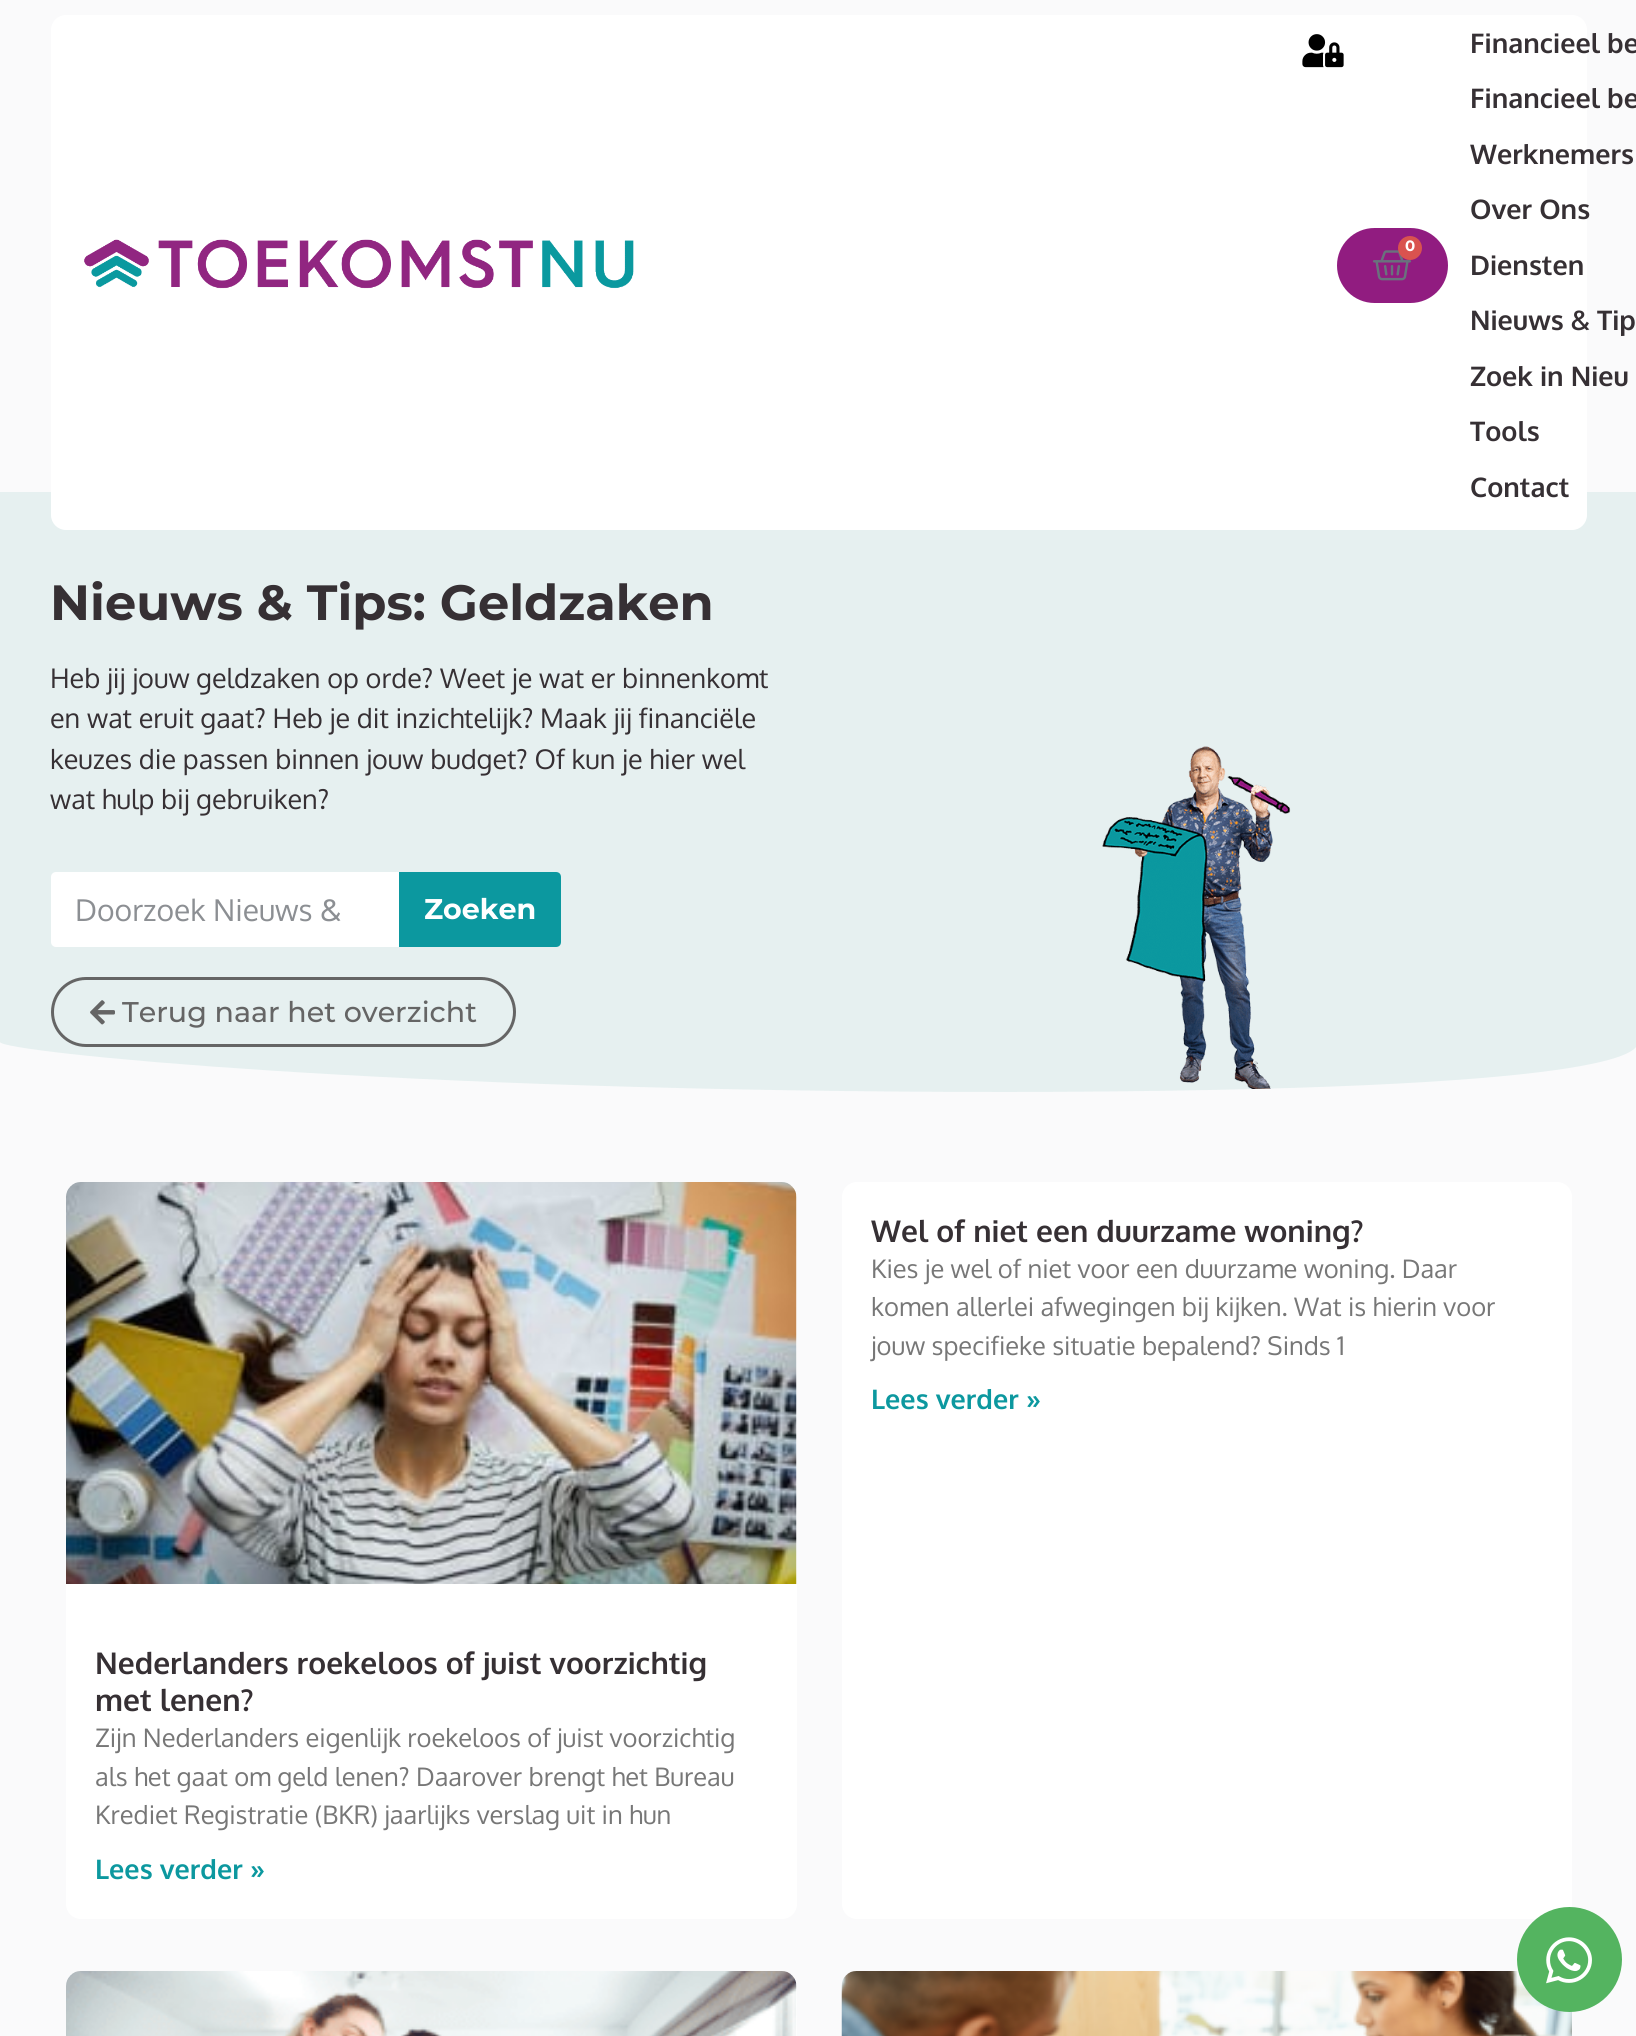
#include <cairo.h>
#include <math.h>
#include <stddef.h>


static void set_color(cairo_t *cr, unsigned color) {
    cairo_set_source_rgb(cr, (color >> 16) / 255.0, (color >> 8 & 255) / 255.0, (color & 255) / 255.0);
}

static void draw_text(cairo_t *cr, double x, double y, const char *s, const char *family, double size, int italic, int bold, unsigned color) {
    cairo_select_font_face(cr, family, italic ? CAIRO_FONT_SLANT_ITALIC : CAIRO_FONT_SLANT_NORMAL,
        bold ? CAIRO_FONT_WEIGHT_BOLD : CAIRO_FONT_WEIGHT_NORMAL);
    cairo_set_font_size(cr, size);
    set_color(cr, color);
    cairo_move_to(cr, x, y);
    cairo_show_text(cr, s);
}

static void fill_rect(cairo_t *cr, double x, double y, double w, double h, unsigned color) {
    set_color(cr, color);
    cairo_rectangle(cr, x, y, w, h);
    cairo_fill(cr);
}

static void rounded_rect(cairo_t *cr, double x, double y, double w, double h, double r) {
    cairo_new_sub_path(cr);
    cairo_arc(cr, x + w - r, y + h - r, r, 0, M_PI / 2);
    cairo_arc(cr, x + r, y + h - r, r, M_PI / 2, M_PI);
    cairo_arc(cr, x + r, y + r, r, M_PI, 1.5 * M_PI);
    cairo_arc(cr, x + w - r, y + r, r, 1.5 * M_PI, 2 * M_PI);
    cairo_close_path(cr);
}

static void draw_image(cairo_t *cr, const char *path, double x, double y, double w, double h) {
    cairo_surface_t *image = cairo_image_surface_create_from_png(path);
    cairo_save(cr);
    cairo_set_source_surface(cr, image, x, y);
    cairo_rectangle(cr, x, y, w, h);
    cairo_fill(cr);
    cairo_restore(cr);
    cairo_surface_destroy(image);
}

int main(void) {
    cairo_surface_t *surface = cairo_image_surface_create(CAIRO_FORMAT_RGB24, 1636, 2036);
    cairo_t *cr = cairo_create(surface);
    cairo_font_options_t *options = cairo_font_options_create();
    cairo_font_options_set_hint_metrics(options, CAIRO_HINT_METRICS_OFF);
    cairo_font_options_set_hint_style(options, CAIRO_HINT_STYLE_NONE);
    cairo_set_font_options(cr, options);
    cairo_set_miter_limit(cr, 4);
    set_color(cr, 0xFAFAFB);
    cairo_paint(cr);
    fill_rect(cr, 0, 492, 1636, 600, 0xE6F0F0);
    set_color(cr, 0xFFFFFF);
    rounded_rect(cr, 51, 15, 1536, 515, 15);
    cairo_fill(cr);
    draw_image(cr, "assets/img1.png", 84, 239, 550, 50);
    draw_image(cr, "assets/img2.png", 1302, 34, 42, 34);
    set_color(cr, 0x911C80);
    rounded_rect(cr, 1337, 228, 111, 75, 37.5);
    cairo_fill(cr);
    draw_image(cr, "assets/img3.png", 1372, 250, 40, 31);
    set_color(cr, 0xD9534F);
    cairo_arc(cr, 1410, 248, 12, 0, 2 * M_PI);
    cairo_fill(cr);
    draw_text(cr, 1405, 251, "0", "Montserrat", 15, 0, 1, 0xFFFFFF);
    draw_text(cr, 1470, 53, "Financieel be", "Oxygen", 27, 0, 1, 0x363034);
    draw_text(cr, 1470, 108, "Financieel be", "Oxygen", 27, 0, 1, 0x363034);
    draw_text(cr, 1470, 164, "Werknemers", "Oxygen", 27, 0, 1, 0x363034);
    draw_text(cr, 1470, 219, "Over Ons", "Oxygen", 27, 0, 1, 0x363034);
    draw_text(cr, 1470, 275, "Diensten", "Oxygen", 27, 0, 1, 0x363034);
    draw_text(cr, 1470, 330, "Nieuws & Tip", "Oxygen", 27, 0, 1, 0x363034);
    draw_text(cr, 1470, 386, "Zoek in Nieu", "Oxygen", 27, 0, 1, 0x363034);
    draw_text(cr, 1470, 441, "Tools", "Oxygen", 27, 0, 1, 0x363034);
    draw_text(cr, 1470, 497, "Contact", "Oxygen", 27, 0, 1, 0x363034);
    draw_text(cr, 50, 620, "Nieuws & Tips: Geldzaken", "Montserrat", 49.5, 0, 1, 0x363034);
    draw_text(cr, 50, 688, "Heb jij jouw geldzaken op orde? Weet je wat er binnenkomt", "Oxygen", 27, 0, 0, 0x363034);
    draw_text(cr, 50, 728, "en wat eruit gaat? Heb je dit inzichtelijk? Maak jij financiële", "Oxygen", 27, 0, 0, 0x363034);
    draw_text(cr, 50, 769, "keuzes die passen binnen jouw budget? Of kun je hier wel", "Oxygen", 27, 0, 0, 0x363034);
    draw_text(cr, 50, 809, "wat hulp bij gebruiken?", "Oxygen", 27, 0, 0, 0x363034);
    set_color(cr, 0xFFFFFF);
    rounded_rect(cr, 51, 872, 510, 75, 5);
    cairo_fill(cr);
    draw_text(cr, 75, 921, "Doorzoek Nieuws &", "Oxygen", 30, 0, 0, 0x8C8F93);
    set_color(cr, 0x0C989F);
    cairo_new_path(cr);
    cairo_move_to(cr, 399, 872);
    cairo_line_to(cr, 556, 872);
    cairo_curve_to(cr, 559, 872, 561, 874, 561, 877);
    cairo_line_to(cr, 561, 942);
    cairo_curve_to(cr, 561, 945, 559, 947, 556, 947);
    cairo_line_to(cr, 399, 947);
    cairo_close_path(cr);
    cairo_fill(cr);
    draw_text(cr, 424, 919, "Zoeken", "Montserrat", 28.5, 0, 1, 0xFFFFFF);
    rounded_rect(cr, 52.5, 978.5, 462, 67, 33.5);
    set_color(cr, 0x656565);
    cairo_set_line_width(cr, 3);
    cairo_stroke(cr);
    draw_image(cr, "assets/img4.png", 90, 1000, 25, 25);
    draw_text(cr, 122, 1022, "Terug naar het overzicht", "Montserrat Medium", 28.5, 0, 0, 0x656565);
    draw_image(cr, "assets/img5.png", 1102, 746, 189, 344);
    set_color(cr, 0xFAFAFB);
    cairo_new_path(cr);
    cairo_move_to(cr, 1008, 1092);
    cairo_curve_to(cr, 393, 1092, 0, 1052, 0, 1042);
    cairo_line_to(cr, 0, 1094);
    cairo_line_to(cr, 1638, 1094);
    cairo_line_to(cr, 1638, 1042);
    cairo_curve_to(cr, 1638, 1052, 1622, 1091, 1008, 1092);
    cairo_close_path(cr);
    cairo_fill(cr);
    set_color(cr, 0xFFFFFF);
    rounded_rect(cr, 842, 1182, 730, 737, 15);
    cairo_fill(cr);
    draw_text(cr, 871, 1242, "Wel of niet een duurzame woning?", "Oxygen", 30, 0, 1, 0x363034);
    draw_text(cr, 871, 1278, "Kies je wel of niet voor een duurzame woning. Daar", "Oxygen", 25.5, 0, 0, 0x777777);
    draw_text(cr, 871, 1316, "komen allerlei afwegingen bij kijken. Wat is hierin voor", "Oxygen", 25.5, 0, 0, 0x777777);
    draw_text(cr, 871, 1355, "jouw specifieke situatie bepalend? Sinds 1", "Oxygen", 25.5, 0, 0, 0x777777);
    draw_text(cr, 871, 1409, "Lees verder »", "Oxygen", 27, 0, 1, 0x0C989F);
    set_color(cr, 0xFFFFFF);
    rounded_rect(cr, 66, 1182, 731, 737, 15);
    cairo_fill(cr);
    draw_image(cr, "assets/img6.png", 66, 1182, 731, 402);
    draw_text(cr, 95, 1674, "Nederlanders roekeloos of juist voorzichtig", "Oxygen", 30, 0, 1, 0x363034);
    draw_text(cr, 95, 1711, "met lenen?", "Oxygen", 30, 0, 1, 0x363034);
    draw_text(cr, 95, 1747, "Zijn Nederlanders eigenlijk roekeloos of juist voorzichtig", "Oxygen", 25.5, 0, 0, 0x777777);
    draw_text(cr, 95, 1786, "als het gaat om geld lenen? Daarover brengt het Bureau", "Oxygen", 25.5, 0, 0, 0x777777);
    draw_text(cr, 95, 1824, "Krediet Registratie (BKR) jaarlijks verslag uit in hun", "Oxygen", 25.5, 0, 0, 0x777777);
    draw_text(cr, 95, 1879, "Lees verder »", "Oxygen", 27, 0, 1, 0x0C989F);
    set_color(cr, 0xFFFFFF);
    rounded_rect(cr, 66, 1971, 731, 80, 15);
    cairo_fill(cr);
    draw_image(cr, "assets/img7.png", 66, 1971, 731, 65);
    draw_image(cr, "assets/img8.png", 841, 1971, 731, 65);
    set_color(cr, 0x54B460);
    cairo_arc(cr, 1569.5, 1959.5, 52.5, 0, 2 * M_PI);
    cairo_fill(cr);
    draw_image(cr, "assets/img9.png", 1546, 1937, 46, 47);
    cairo_surface_write_to_png(surface, "output.png");
    cairo_font_options_destroy(options);
    cairo_destroy(cr);
    cairo_surface_destroy(surface);
    return 0;
}
